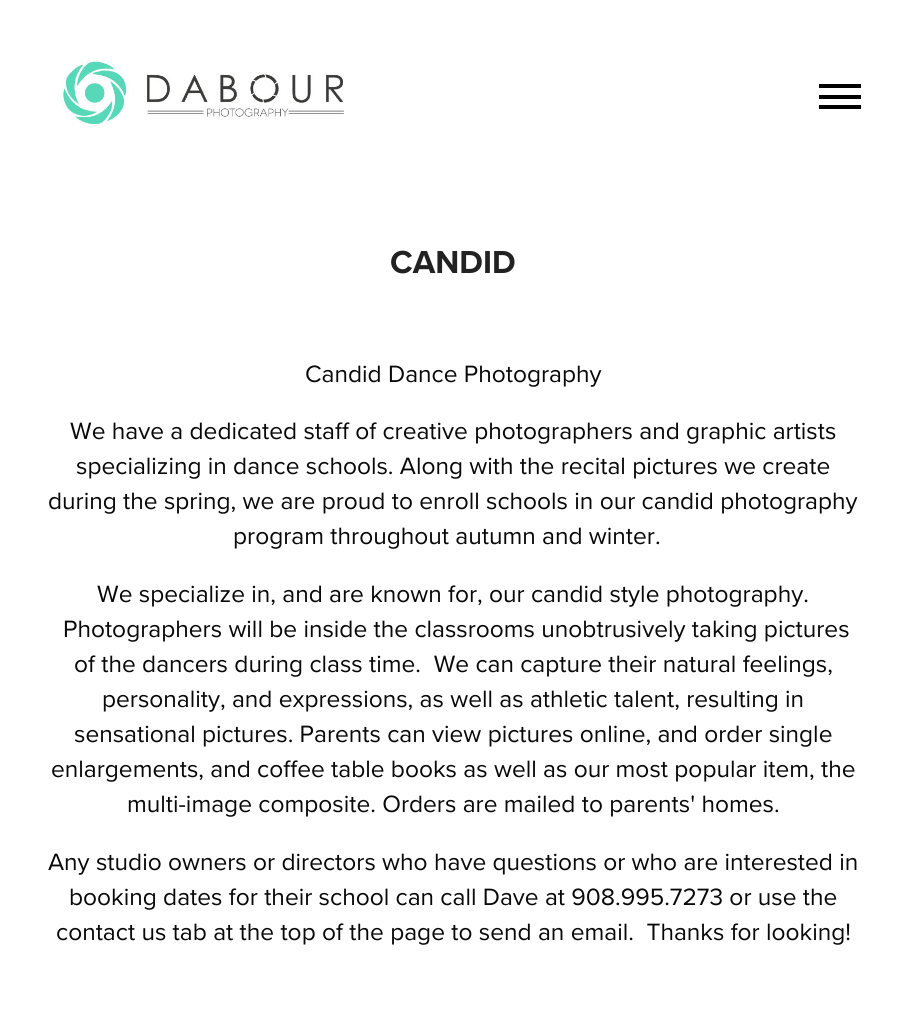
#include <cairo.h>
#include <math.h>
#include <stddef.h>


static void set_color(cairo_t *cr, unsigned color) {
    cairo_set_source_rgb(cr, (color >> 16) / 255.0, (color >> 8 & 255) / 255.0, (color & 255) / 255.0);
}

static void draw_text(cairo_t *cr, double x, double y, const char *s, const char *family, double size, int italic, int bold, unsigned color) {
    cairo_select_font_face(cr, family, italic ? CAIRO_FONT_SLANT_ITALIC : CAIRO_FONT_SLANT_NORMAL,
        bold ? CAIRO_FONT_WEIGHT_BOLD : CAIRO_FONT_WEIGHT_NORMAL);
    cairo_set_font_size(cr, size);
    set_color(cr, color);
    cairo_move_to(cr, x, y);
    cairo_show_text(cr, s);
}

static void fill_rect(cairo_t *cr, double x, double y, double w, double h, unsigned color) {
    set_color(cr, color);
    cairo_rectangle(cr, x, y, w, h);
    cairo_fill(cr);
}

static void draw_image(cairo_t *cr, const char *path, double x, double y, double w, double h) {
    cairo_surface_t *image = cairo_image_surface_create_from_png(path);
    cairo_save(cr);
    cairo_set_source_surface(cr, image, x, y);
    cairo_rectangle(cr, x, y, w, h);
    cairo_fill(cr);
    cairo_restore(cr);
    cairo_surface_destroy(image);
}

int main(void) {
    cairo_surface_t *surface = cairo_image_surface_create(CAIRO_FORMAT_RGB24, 905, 1021);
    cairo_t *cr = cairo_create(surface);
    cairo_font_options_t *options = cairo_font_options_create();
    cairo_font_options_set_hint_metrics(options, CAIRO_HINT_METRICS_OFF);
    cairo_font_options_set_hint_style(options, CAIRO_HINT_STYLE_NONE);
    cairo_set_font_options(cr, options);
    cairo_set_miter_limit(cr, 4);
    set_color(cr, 0xFFFFFF);
    cairo_paint(cr);
    draw_image(cr, "assets/img1.png", 62, 60, 282, 68);
    fill_rect(cr, 819, 84, 42, 4, 0x000000);
    fill_rect(cr, 819, 95, 42, 4, 0x000000);
    fill_rect(cr, 819, 105, 42, 4, 0x000000);
    draw_text(cr, 390, 273, "CANDID", "Proxima Nova", 33, 0, 1, 0x222222);
    draw_text(cr, 305, 382, "Candid Dance Photography", "Proxima Nova", 24.5, 0, 0, 0x080808);
    draw_text(cr, 70, 439, "We have a dedicated staff of creative photographers and graphic artists", "Proxima Nova", 24.5, 0, 0, 0x080808);
    draw_text(cr, 76, 474, "specializing in dance schools. Along with the recital pictures we create", "Proxima Nova", 24.5, 0, 0, 0x080808);
    draw_text(cr, 48, 509, "during the spring, we are proud to enroll schools in our candid photography", "Proxima Nova", 24.5, 0, 0, 0x080808);
    draw_text(cr, 233, 544, "program throughout autumn and winter.", "Proxima Nova", 24.5, 0, 0, 0x080808);
    draw_text(cr, 97, 602, "We specialize in, and are known for, our candid style photography.", "Proxima Nova", 24.5, 0, 0, 0x080808);
    draw_text(cr, 63, 637, "Photographers will be inside the classrooms unobtrusively taking pictures", "Proxima Nova", 24.5, 0, 0, 0x080808);
    draw_text(cr, 74, 672, "of the dancers during class time.  We can capture their natural feelings,", "Proxima Nova", 24.5, 0, 0, 0x080808);
    draw_text(cr, 102, 707, "personality, and expressions, as well as athletic talent, resulting in", "Proxima Nova", 24.5, 0, 0, 0x080808);
    draw_text(cr, 74, 742, "sensational pictures. Parents can view pictures online, and order single", "Proxima Nova", 24.5, 0, 0, 0x080808);
    draw_text(cr, 51, 777, "enlargements, and coffee table books as well as our most popular item, the", "Proxima Nova", 24.5, 0, 0, 0x080808);
    draw_text(cr, 127, 812, "multi-image composite. Orders are mailed to parents' homes.", "Proxima Nova", 24.5, 0, 0, 0x080808);
    draw_text(cr, 48, 870, "Any studio owners or directors who have questions or who are interested in", "Proxima Nova", 24.5, 0, 0, 0x080808);
    draw_text(cr, 69, 905, "booking dates for their school can call Dave at 908.995.7273 or use the", "Proxima Nova", 24.5, 0, 0, 0x080808);
    draw_text(cr, 56, 940, "contact us tab at the top of the page to send an email.  Thanks for looking!", "Proxima Nova", 24.5, 0, 0, 0x080808);
    cairo_surface_write_to_png(surface, "output.png");
    cairo_font_options_destroy(options);
    cairo_destroy(cr);
    cairo_surface_destroy(surface);
    return 0;
}
